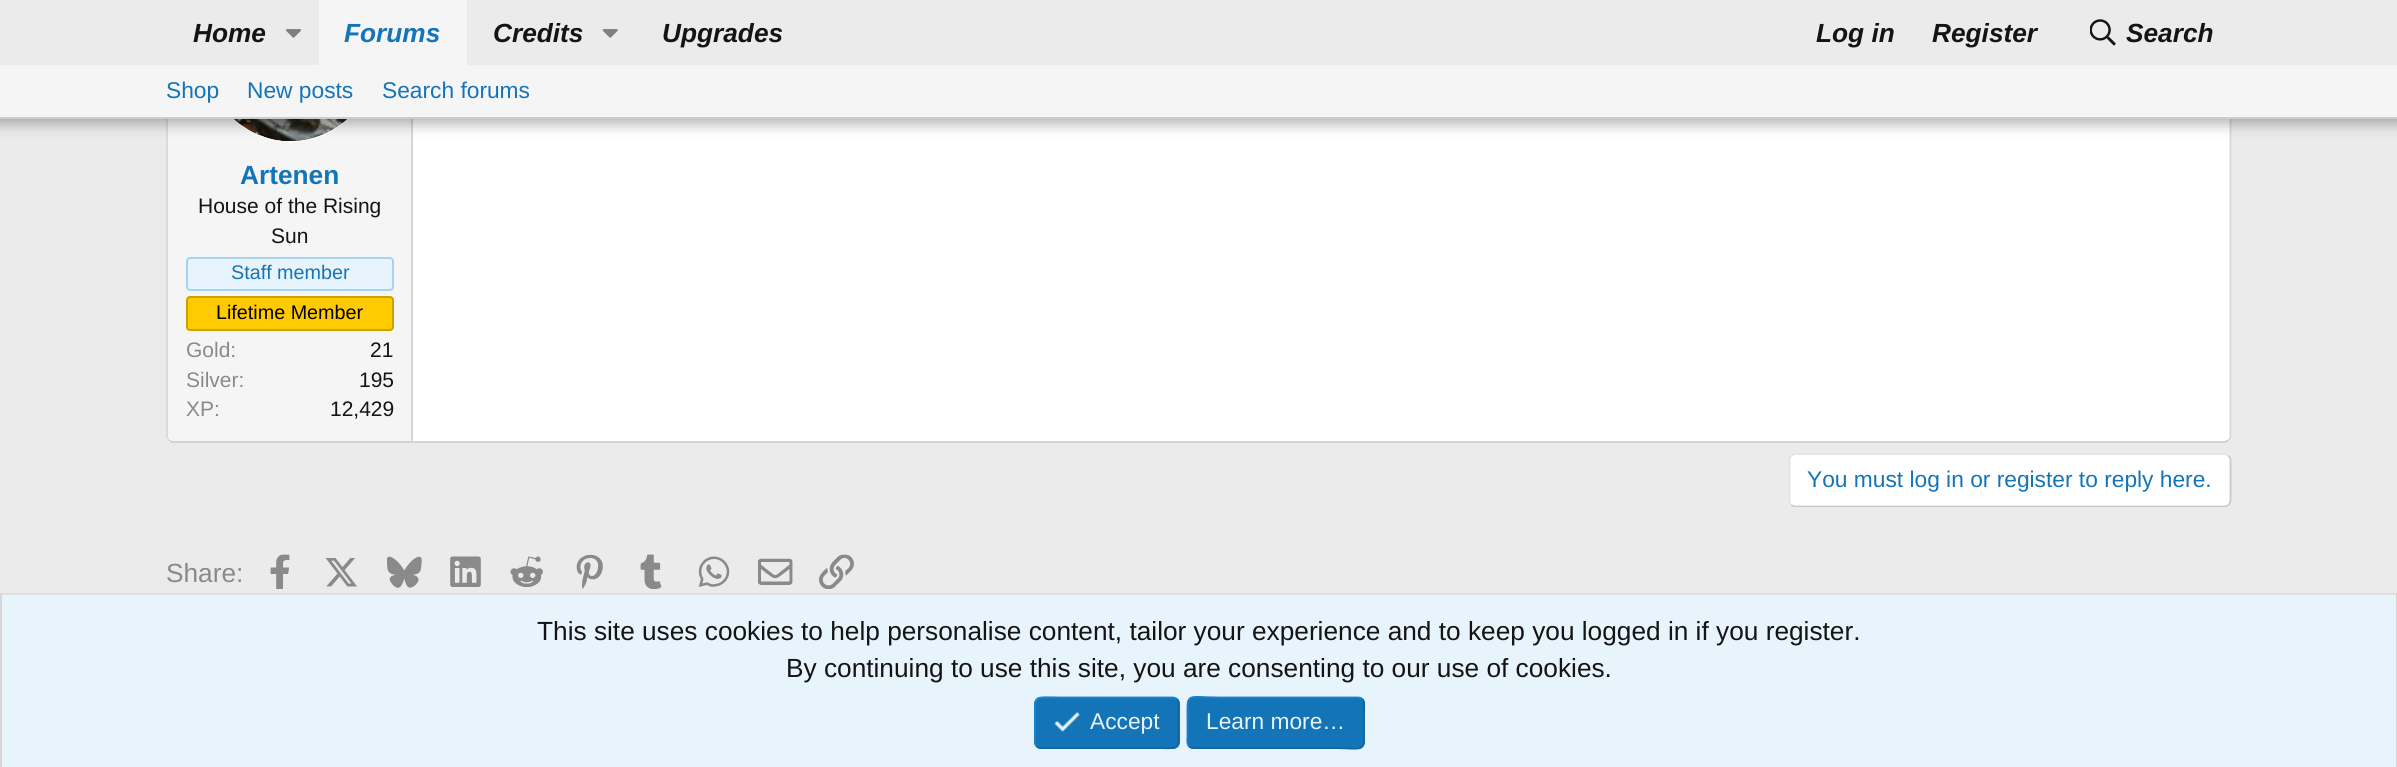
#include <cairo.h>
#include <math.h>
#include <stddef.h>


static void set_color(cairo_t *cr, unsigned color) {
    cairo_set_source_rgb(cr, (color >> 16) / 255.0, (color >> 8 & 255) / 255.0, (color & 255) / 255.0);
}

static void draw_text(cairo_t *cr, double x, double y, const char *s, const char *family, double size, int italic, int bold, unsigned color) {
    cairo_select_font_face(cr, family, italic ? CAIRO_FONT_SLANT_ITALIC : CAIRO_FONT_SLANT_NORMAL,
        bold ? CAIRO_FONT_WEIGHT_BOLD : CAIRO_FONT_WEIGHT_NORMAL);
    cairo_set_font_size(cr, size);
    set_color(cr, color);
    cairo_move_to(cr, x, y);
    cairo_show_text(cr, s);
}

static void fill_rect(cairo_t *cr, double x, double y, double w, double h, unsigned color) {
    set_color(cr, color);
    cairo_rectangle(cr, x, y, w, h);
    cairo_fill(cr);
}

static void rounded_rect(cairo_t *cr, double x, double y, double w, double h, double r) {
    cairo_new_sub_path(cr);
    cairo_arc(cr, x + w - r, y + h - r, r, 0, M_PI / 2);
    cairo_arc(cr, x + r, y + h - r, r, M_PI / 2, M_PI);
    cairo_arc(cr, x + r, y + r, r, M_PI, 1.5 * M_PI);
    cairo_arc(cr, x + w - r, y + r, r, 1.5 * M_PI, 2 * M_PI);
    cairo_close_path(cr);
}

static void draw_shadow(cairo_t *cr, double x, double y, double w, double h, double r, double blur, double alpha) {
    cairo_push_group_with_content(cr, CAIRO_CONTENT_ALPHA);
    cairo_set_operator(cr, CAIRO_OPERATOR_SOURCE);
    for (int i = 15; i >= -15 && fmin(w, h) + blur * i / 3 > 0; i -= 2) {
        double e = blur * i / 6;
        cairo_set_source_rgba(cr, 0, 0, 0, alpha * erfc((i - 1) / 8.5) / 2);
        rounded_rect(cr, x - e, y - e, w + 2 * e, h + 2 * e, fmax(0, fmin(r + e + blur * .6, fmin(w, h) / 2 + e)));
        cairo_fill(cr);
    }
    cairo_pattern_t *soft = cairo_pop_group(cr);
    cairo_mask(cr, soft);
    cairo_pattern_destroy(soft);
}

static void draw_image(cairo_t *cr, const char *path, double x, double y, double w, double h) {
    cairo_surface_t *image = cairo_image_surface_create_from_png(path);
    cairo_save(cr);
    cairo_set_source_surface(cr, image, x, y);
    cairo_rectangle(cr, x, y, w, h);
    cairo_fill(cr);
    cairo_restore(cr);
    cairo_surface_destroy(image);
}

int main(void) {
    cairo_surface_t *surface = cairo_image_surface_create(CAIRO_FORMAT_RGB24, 2397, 767);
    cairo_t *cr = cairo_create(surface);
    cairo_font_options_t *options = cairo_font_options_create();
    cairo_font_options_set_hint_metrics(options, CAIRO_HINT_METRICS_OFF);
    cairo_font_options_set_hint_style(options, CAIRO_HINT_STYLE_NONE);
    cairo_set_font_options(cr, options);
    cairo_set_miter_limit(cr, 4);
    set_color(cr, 0xEBEBEB);
    cairo_paint(cr);
    set_color(cr, 0xFFFFFF);
    rounded_rect(cr, 166, -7, 2065, 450, 7);
    cairo_fill(cr);
    cairo_new_path(cr);
    cairo_move_to(cr, 2228.5, -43);
    cairo_curve_to(cr, 2229.5, -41.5, 2230.5, -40, 2230.5, -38.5);
    cairo_line_to(cr, 2230.5, 436);
    cairo_curve_to(cr, 2230.5, 437.5, 2229.5, 439, 2228.5, 440);
    set_color(cr, 0xD6D6D6);
    cairo_set_line_width(cr, 1.8);
    cairo_stroke(cr);
    cairo_new_path(cr);
    cairo_move_to(cr, 2228.5, 440);
    cairo_curve_to(cr, 2227.5, 441, 2226, 442, 2224, 442);
    cairo_line_to(cr, 173, 442);
    cairo_curve_to(cr, 171.5, 442, 170, 441, 169, 440);
    set_color(cr, 0xCCCCCC);
    cairo_stroke(cr);
    cairo_new_path(cr);
    cairo_move_to(cr, 169, 440);
    cairo_curve_to(cr, 168, 439, 167, 437.5, 167, 436);
    cairo_line_to(cr, 167, -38.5);
    cairo_curve_to(cr, 167, -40, 168, -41.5, 169, -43);
    set_color(cr, 0xD6D6D6);
    cairo_stroke(cr);
    set_color(cr, 0xF5F5F5);
    cairo_new_path(cr);
    cairo_move_to(cr, 173, -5);
    cairo_line_to(cr, 413, -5);
    cairo_line_to(cr, 413, 441);
    cairo_line_to(cr, 173, 441);
    cairo_curve_to(cr, 170, 441, 168, 439, 168, 436);
    cairo_line_to(cr, 168, 0);
    cairo_curve_to(cr, 168, -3, 170, -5, 173, -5);
    cairo_close_path(cr);
    cairo_fill(cr);
    fill_rect(cr, 411, 119, 2, 322, 0xD6D6D6);
    set_color(cr, 0xFFFFFF);
    cairo_arc(cr, 291, 58, 84, 0, 2 * M_PI);
    cairo_fill(cr);
    draw_image(cr, "assets/img4.png", 234, 119, 113, 22);
    set_color(cr, 0x000000);
    draw_shadow(cr, -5, -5, 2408, 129, 0, 7, 0.3);
    fill_rect(cr, 0, 0, 2397, 65, 0xEBEBEB);
    draw_text(cr, 193, 42, "Home", "Liberation Sans", 26.25, 1, 1, 0x141414);
    draw_image(cr, "assets/img1.png", 285, 29, 16, 9);
    fill_rect(cr, 319, 0, 148, 65, 0xF5F5F5);
    draw_text(cr, 344, 42, "Forums", "Liberation Sans", 26.25, 1, 1, 0x1474B8);
    draw_text(cr, 493, 42, "Credits", "Liberation Sans", 26.25, 1, 1, 0x141414);
    draw_image(cr, "assets/img2.png", 602, 29, 16, 9);
    draw_text(cr, 662, 42, "Upgrades", "Liberation Sans", 26.25, 1, 1, 0x141414);
    draw_text(cr, 1816, 42, "Log in", "Liberation Sans", 26.25, 1, 1, 0x141414);
    draw_text(cr, 1932, 42, "Register", "Liberation Sans", 26.25, 1, 1, 0x141414);
    draw_image(cr, "assets/img3.png", 2090, 19, 26, 27);
    draw_text(cr, 2126, 42, "Search", "Liberation Sans", 26.25, 1, 1, 0x141414);
    fill_rect(cr, 0, 65, 2397, 52, 0xF5F5F5);
    fill_rect(cr, 0, 117, 2397, 2, 0xCCCCCC);
    draw_text(cr, 166, 98, "Shop", "Liberation Sans", 22.75, 0, 0, 0x1474B8);
    draw_text(cr, 247, 98, "New posts", "Liberation Sans", 22.75, 0, 0, 0x1474B8);
    draw_text(cr, 382, 98, "Search forums", "Liberation Sans", 22.75, 0, 0, 0x1474B8);
    draw_text(cr, 240, 184, "Artenen", "Liberation Sans", 26.25, 0, 1, 0x1474B8);
    draw_text(cr, 198, 213, "House of the Rising", "Liberation Sans", 21, 0, 0, 0x141414);
    draw_text(cr, 271, 243, "Sun", "Liberation Sans", 21, 0, 0, 0x141414);
    set_color(cr, 0xE8F4FC);
    rounded_rect(cr, 187, 258, 206, 32, 3);
    cairo_fill_preserve(cr);
    set_color(cr, 0xA3D4F5);
    cairo_set_line_width(cr, 2);
    cairo_stroke(cr);
    draw_text(cr, 231, 279, "Staff member", "Liberation Sans", 19.75, 0, 0, 0x1474B8);
    set_color(cr, 0xFFCB00);
    rounded_rect(cr, 187, 297, 206, 33, 3);
    cairo_fill_preserve(cr);
    set_color(cr, 0xCCA200);
    cairo_stroke(cr);
    draw_text(cr, 216, 319, "Lifetime Member", "Liberation Sans", 19.75, 0, 0, 0x000000);
    draw_text(cr, 186, 357, "Gold:", "Liberation Sans", 21, 0, 0, 0x8A8A8A);
    draw_text(cr, 370, 357, "21", "Liberation Sans", 21, 0, 0, 0x141414);
    draw_text(cr, 186, 387, "Silver:", "Liberation Sans", 21, 0, 0, 0x8A8A8A);
    draw_text(cr, 359, 387, "195", "Liberation Sans", 21, 0, 0, 0x141414);
    draw_text(cr, 186, 416, "XP:", "Liberation Sans", 21, 0, 0, 0x8A8A8A);
    draw_text(cr, 330, 416, "12,429", "Liberation Sans", 21, 0, 0, 0x141414);
    set_color(cr, 0xFFFFFF);
    rounded_rect(cr, 1789, 453, 442, 55, 7);
    cairo_fill(cr);
    cairo_new_path(cr);
    cairo_move_to(cr, 2228.5, 456);
    cairo_curve_to(cr, 2229.5, 457, 2230.5, 458.5, 2230.5, 460);
    cairo_line_to(cr, 2230.5, 500.5);
    cairo_curve_to(cr, 2230.5, 502, 2229.5, 503.5, 2228.5, 505);
    cairo_curve_to(cr, 2227.5, 506, 2226, 506.5, 2224, 506.5);
    cairo_line_to(cr, 1795.5, 506.5);
    cairo_curve_to(cr, 1794, 506.5, 1792.5, 506, 1791, 505);
    set_color(cr, 0xC9C9C9);
    cairo_set_line_width(cr, 1.8);
    cairo_stroke(cr);
    cairo_new_path(cr);
    cairo_move_to(cr, 1791, 505);
    cairo_curve_to(cr, 1790, 503.5, 1789.5, 502, 1789.5, 500.5);
    cairo_line_to(cr, 1789.5, 460);
    cairo_curve_to(cr, 1789.5, 458.5, 1790, 457, 1791, 456);
    cairo_curve_to(cr, 1792.5, 455, 1794, 454, 1795.5, 454);
    cairo_line_to(cr, 2224, 454);
    cairo_curve_to(cr, 2226, 454, 2227.5, 455, 2228.5, 456);
    set_color(cr, 0xE3E3E3);
    cairo_stroke(cr);
    draw_text(cr, 1807, 487, "You must log in or register to reply here.", "Liberation Sans", 22.75, 0, 0, 0x1474B8);
    draw_text(cr, 166, 582, "Share:", "Liberation Sans", 26.25, 0, 0, 0x8A8A8A);
    draw_image(cr, "assets/img5.png", 270, 554, 20, 35);
    draw_image(cr, "assets/img6.png", 325, 558, 32, 29);
    draw_image(cr, "assets/img7.png", 387, 556, 35, 32);
    draw_image(cr, "assets/img8.png", 450, 556, 31, 31);
    draw_image(cr, "assets/img9.png", 510, 556, 33, 31);
    draw_image(cr, "assets/img10.png", 576, 554, 27, 35);
    draw_image(cr, "assets/img11.png", 640, 554, 22, 35);
    draw_image(cr, "assets/img12.png", 698, 556, 32, 31);
    draw_image(cr, "assets/img13.png", 758, 558, 35, 27);
    draw_image(cr, "assets/img14.png", 819, 554, 35, 35);
    fill_rect(cr, 2, 595, 2394, 172, 0xE8F4FC);
    fill_rect(cr, 0, 593, 2397, 2, 0xE0E0E0);
    fill_rect(cr, 2396, 593, 1, 174, 0xD6D6D6);
    fill_rect(cr, 0, 593, 2, 174, 0xD6D6D6);
    draw_text(cr, 537, 640, "This site uses cookies to help personalise content, tailor your experience and to keep you logged in if you register.", "Liberation Sans", 26.25, 0, 0, 0x141414);
    draw_text(cr, 786, 677, "By continuing to use this site, you are consenting to our use of cookies.", "Liberation Sans", 26.25, 0, 0, 0x141414);
    set_color(cr, 0x1474B8);
    rounded_rect(cr, 1034, 697, 146, 52, 7);
    cairo_fill(cr);
    cairo_new_path(cr);
    cairo_move_to(cr, 1177, 699);
    cairo_curve_to(cr, 1179.5, 702, 1178.5, 706.5, 1178.5, 710);
    cairo_line_to(cr, 1178.5, 723);
    cairo_curve_to(cr, 1178.5, 752.5, 1182.5, 748, 1150.5, 748);
    cairo_line_to(cr, 1041, 748);
    cairo_curve_to(cr, 1039.5, 748, 1038, 747.5, 1037, 746.5);
    set_color(cr, 0x1265A1);
    cairo_stroke(cr);
    cairo_new_path(cr);
    cairo_move_to(cr, 1037, 746.5);
    cairo_curve_to(cr, 1034, 743.5, 1035, 739, 1035, 735.5);
    cairo_line_to(cr, 1035, 723);
    cairo_curve_to(cr, 1035, 693, 1031.5, 697.5, 1063, 697.5);
    cairo_line_to(cr, 1172.5, 697.5);
    cairo_curve_to(cr, 1174, 697.5, 1175.5, 698, 1177, 699);
    set_color(cr, 0x1782CF);
    cairo_stroke(cr);
    draw_image(cr, "assets/img15.png", 1054, 712, 26, 20);
    draw_text(cr, 1090, 729, "Accept", "Liberation Sans", 22.75, 0, 0, 0xE8F4FC);
    set_color(cr, 0x1474B8);
    rounded_rect(cr, 1187, 697, 178, 52, 7);
    cairo_fill(cr);
    cairo_new_path(cr);
    cairo_move_to(cr, 1362.5, 699);
    cairo_curve_to(cr, 1365, 702, 1364, 706.5, 1364, 710);
    cairo_line_to(cr, 1364, 723);
    cairo_curve_to(cr, 1364, 755, 1367.5, 748, 1330.5, 748);
    cairo_line_to(cr, 1193.5, 748);
    cairo_curve_to(cr, 1192, 748, 1190.5, 747.5, 1189, 746.5);
    set_color(cr, 0x1265A1);
    cairo_stroke(cr);
    cairo_new_path(cr);
    cairo_move_to(cr, 1189, 746.5);
    cairo_curve_to(cr, 1186.5, 743.5, 1187.5, 739, 1187.5, 735.5);
    cairo_line_to(cr, 1187.5, 723);
    cairo_curve_to(cr, 1187.5, 690.5, 1184, 697.5, 1221, 697.5);
    cairo_line_to(cr, 1358, 697.5);
    cairo_curve_to(cr, 1359.5, 697.5, 1361, 698, 1362.5, 699);
    set_color(cr, 0x1782CF);
    cairo_stroke(cr);
    draw_text(cr, 1206, 729, "Learn more…", "Liberation Sans", 22.75, 0, 0, 0xE8F4FC);
    cairo_surface_write_to_png(surface, "output.png");
    cairo_font_options_destroy(options);
    cairo_destroy(cr);
    cairo_surface_destroy(surface);
    return 0;
}
